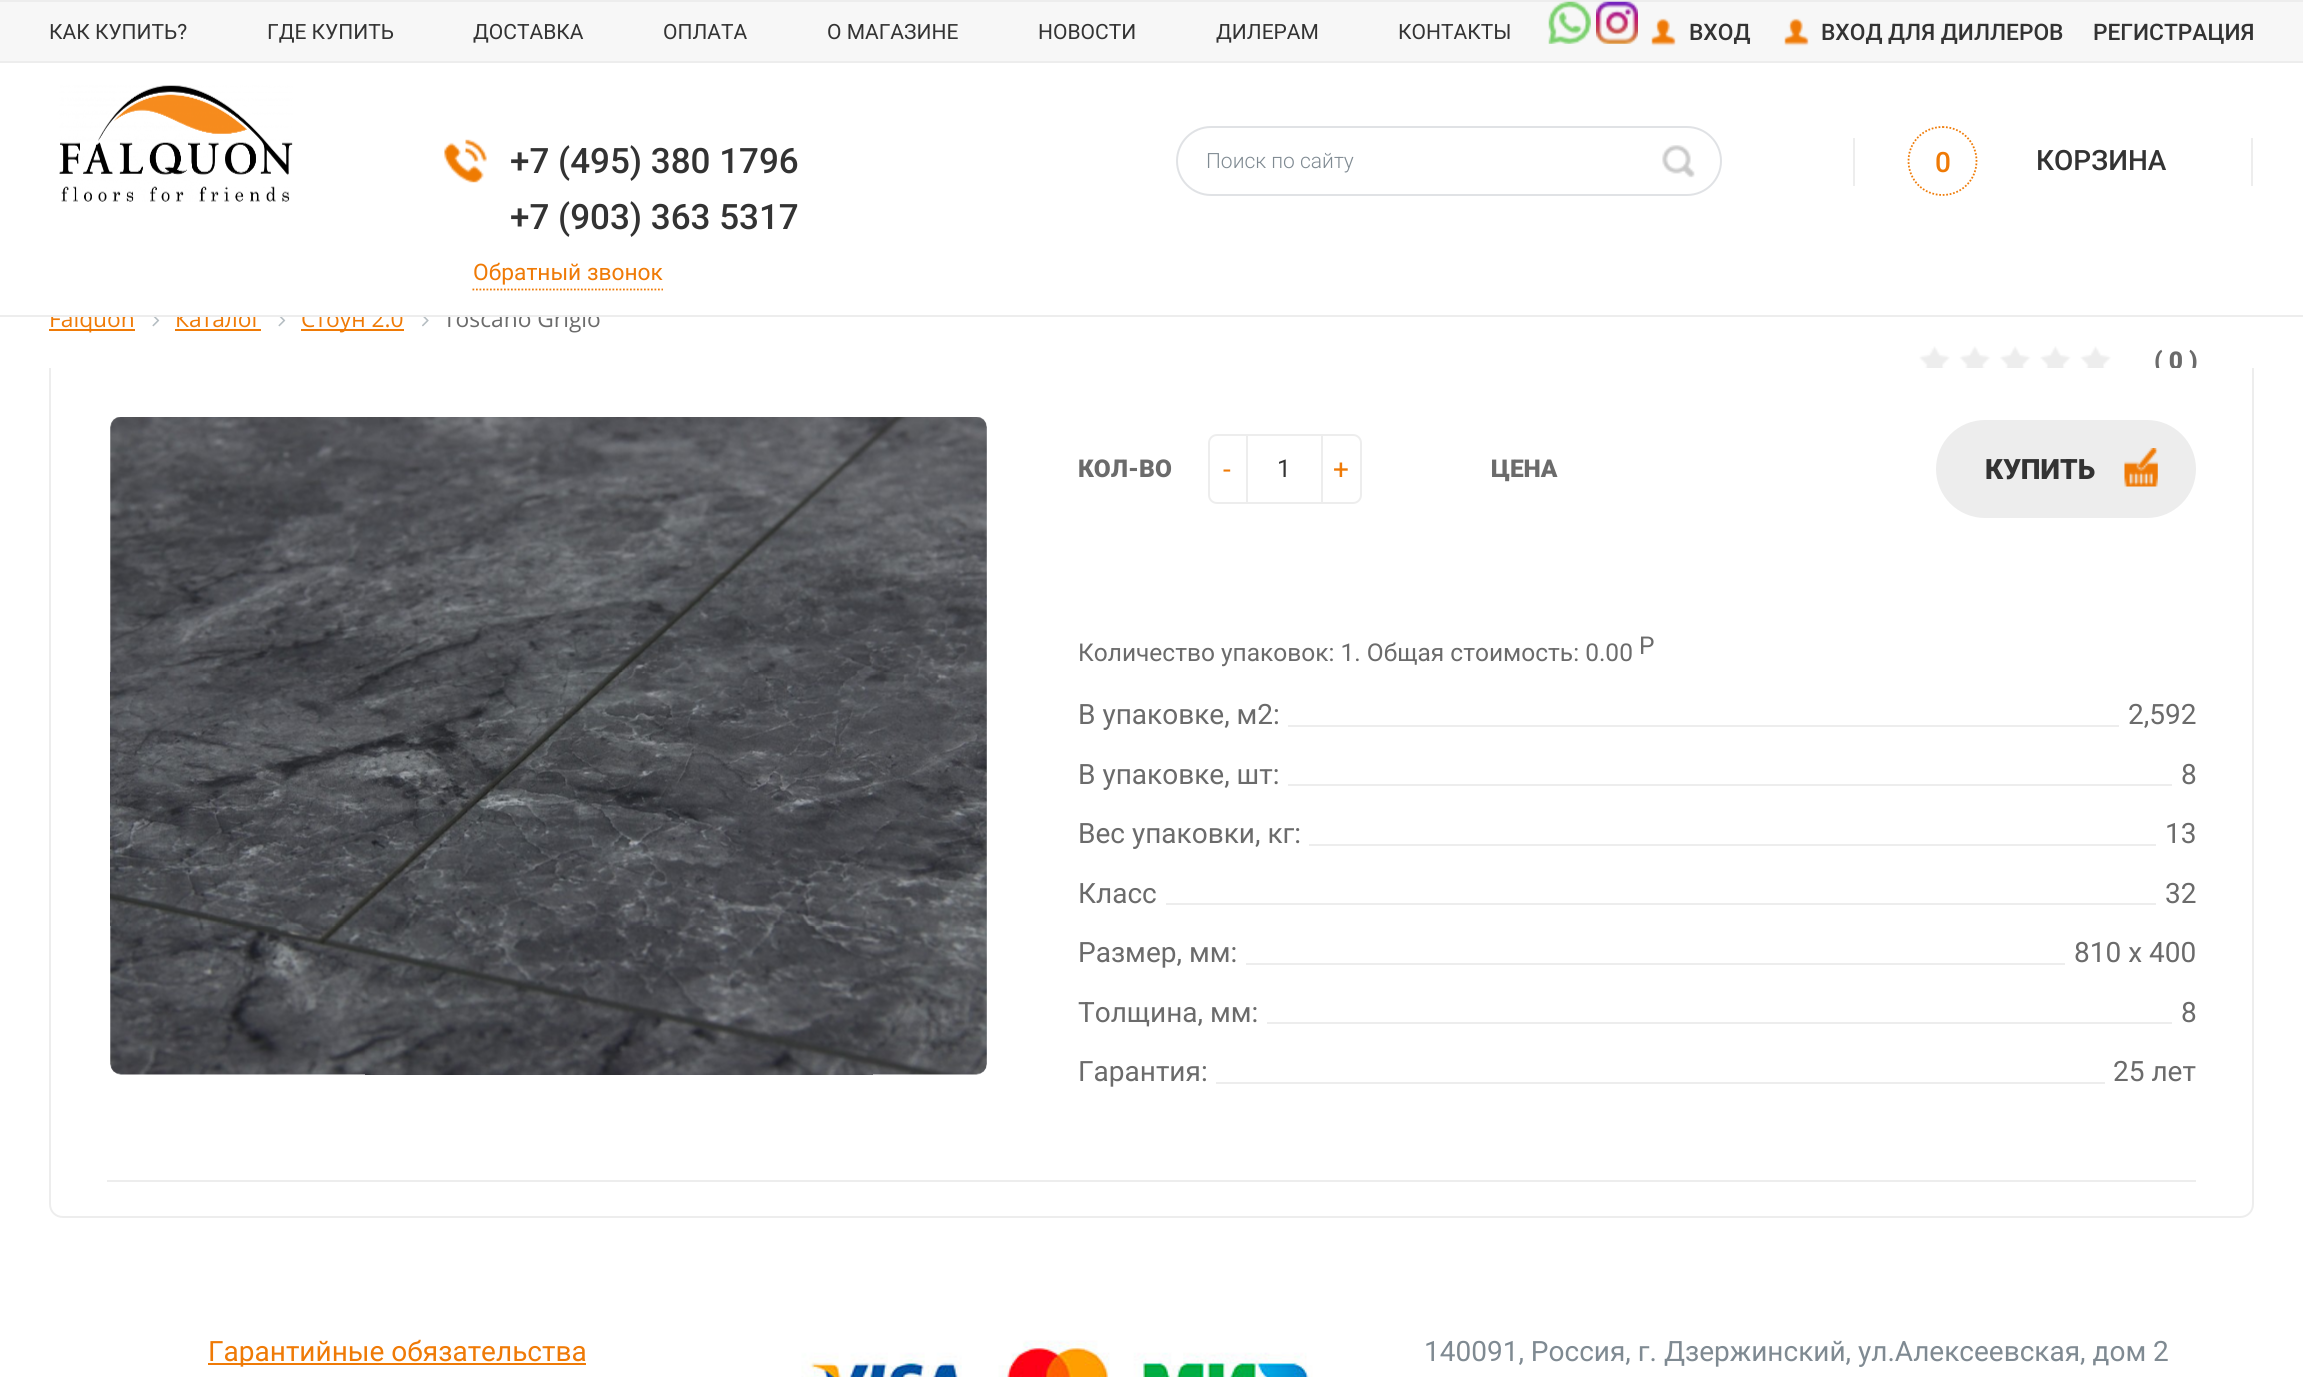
#include <cairo.h>
#include <math.h>
#include <stddef.h>


static void set_color(cairo_t *cr, unsigned color) {
    cairo_set_source_rgb(cr, (color >> 16) / 255.0, (color >> 8 & 255) / 255.0, (color & 255) / 255.0);
}

static void draw_text(cairo_t *cr, double x, double y, const char *s, const char *family, double size, int italic, int bold, unsigned color) {
    cairo_select_font_face(cr, family, italic ? CAIRO_FONT_SLANT_ITALIC : CAIRO_FONT_SLANT_NORMAL,
        bold ? CAIRO_FONT_WEIGHT_BOLD : CAIRO_FONT_WEIGHT_NORMAL);
    cairo_set_font_size(cr, size);
    set_color(cr, color);
    cairo_move_to(cr, x, y);
    cairo_show_text(cr, s);
}

static void fill_rect(cairo_t *cr, double x, double y, double w, double h, unsigned color) {
    set_color(cr, color);
    cairo_rectangle(cr, x, y, w, h);
    cairo_fill(cr);
}

static void rounded_rect(cairo_t *cr, double x, double y, double w, double h, double r) {
    cairo_new_sub_path(cr);
    cairo_arc(cr, x + w - r, y + h - r, r, 0, M_PI / 2);
    cairo_arc(cr, x + r, y + h - r, r, M_PI / 2, M_PI);
    cairo_arc(cr, x + r, y + r, r, M_PI, 1.5 * M_PI);
    cairo_arc(cr, x + w - r, y + r, r, 1.5 * M_PI, 2 * M_PI);
    cairo_close_path(cr);
}

static void draw_image(cairo_t *cr, const char *path, double x, double y, double w, double h) {
    cairo_surface_t *image = cairo_image_surface_create_from_png(path);
    cairo_save(cr);
    cairo_set_source_surface(cr, image, x, y);
    cairo_rectangle(cr, x, y, w, h);
    cairo_fill(cr);
    cairo_restore(cr);
    cairo_surface_destroy(image);
}

int main(void) {
    cairo_surface_t *surface = cairo_image_surface_create(CAIRO_FORMAT_RGB24, 2303, 1377);
    cairo_t *cr = cairo_create(surface);
    cairo_font_options_t *options = cairo_font_options_create();
    cairo_font_options_set_hint_metrics(options, CAIRO_HINT_METRICS_OFF);
    cairo_font_options_set_hint_style(options, CAIRO_HINT_STYLE_NONE);
    cairo_set_font_options(cr, options);
    cairo_set_miter_limit(cr, 4);
    set_color(cr, 0xFFFFFF);
    cairo_paint(cr);
    fill_rect(cr, 0, 2, 2303, 59, 0xF7F7F7);
    fill_rect(cr, 0, 0, 2303, 2, 0xEDEDED);
    fill_rect(cr, 0, 61, 2303, 2, 0xEDEDED);
    draw_text(cr, 49, 39, "КАК КУПИТЬ?", "Roboto", 21, 0, 0, 0x333333);
    draw_text(cr, 267, 39, "ГДЕ КУПИТЬ", "Roboto", 21, 0, 0, 0x333333);
    draw_text(cr, 473, 39, "ДОСТАВКА", "Roboto", 21, 0, 0, 0x333333);
    draw_text(cr, 663, 39, "ОПЛАТА", "Roboto", 21, 0, 0, 0x333333);
    draw_text(cr, 827, 39, "О МАГАЗИНЕ", "Roboto", 21, 0, 0, 0x333333);
    draw_text(cr, 1038, 39, "НОВОСТИ", "Roboto", 21, 0, 0, 0x333333);
    draw_text(cr, 1216, 39, "ДИЛЕРАМ", "Roboto", 21, 0, 0, 0x333333);
    draw_text(cr, 1398, 39, "КОНТАКТЫ", "Roboto", 21, 0, 0, 0x333333);
    draw_image(cr, "assets/img1.png", 1548, 1, 43, 43);
    draw_image(cr, "assets/img2.png", 1596, 1, 42, 43);
    draw_image(cr, "assets/img3.png", 1651, 18, 25, 28);
    draw_text(cr, 1689, 40, "ВХОД", "Roboto Medium", 22.75, 0, 0, 0x333333);
    draw_image(cr, "assets/img4.png", 1784, 18, 25, 28);
    draw_text(cr, 1821, 40, "ВХОД ДЛЯ ДИЛЛЕРОВ", "Roboto Medium", 22.75, 0, 0, 0x333333);
    draw_text(cr, 2093, 40, "РЕГИСТРАЦИЯ", "Roboto Medium", 22.75, 0, 0, 0x333333);
    fill_rect(cr, 49, 329, 86, 2, 0xEF7A06);
    draw_text(cr, 49, 327, "Falquon", "Open Sans", 22.75, 0, 0, 0xEF7A06);
    draw_text(cr, 175, 327, "Каталог", "Open Sans", 22.75, 0, 0, 0xEF7A06);
    fill_rect(cr, 301, 329, 103, 2, 0xEF7A06);
    draw_text(cr, 301, 327, "Стоун 2.0", "Open Sans", 22.75, 0, 0, 0xEF7A06);
    draw_text(cr, 443, 327, "Toscano Grigio", "Open Sans", 22.75, 0, 0, 0x6B6B6B);
    fill_rect(cr, 51, 309, 546, 6, 0xFFFFFF);
    fill_rect(cr, 0, 315, 2303, 2, 0xEDEDED);
    draw_image(cr, "assets/img5.png", 59, 85, 234, 117);
    draw_image(cr, "assets/img6.png", 444, 139, 43, 44);
    draw_text(cr, 510, 173, "+7 (495) 380 1796", "Roboto Medium", 35, 0, 0, 0x333333);
    draw_text(cr, 510, 229, "+7 (903) 363 5317", "Roboto Medium", 35, 0, 0, 0x333333);
    cairo_new_path(cr);
    cairo_move_to(cr, 472.5, 289.5);
    cairo_line_to(cr, 663, 289.5);
    set_color(cr, 0xEF7A06);
    cairo_set_line_width(cr, 1.8);
    cairo_set_dash(cr, (double[]){1.75, 1.75}, 2, 0);
    cairo_stroke(cr);
    draw_text(cr, 473, 280, "Обратный звонок", "Roboto", 22.75, 0, 0, 0xEF7A06);
    rounded_rect(cr, 1177, 127, 544, 68, 34);
    set_color(cr, 0xE0E2E5);
    cairo_set_line_width(cr, 2);
    cairo_set_dash(cr, NULL, 0, 0);
    cairo_stroke(cr);
    draw_text(cr, 1206, 168, "Поиск по сайту", "Roboto Light", 21, 0, 0, 0x7F8A92);
    draw_image(cr, "assets/img7.png", 1662, 145, 33, 33);
    fill_rect(cr, 1853, 138, 2, 48, 0xEDEDED);
    cairo_new_path(cr);
    cairo_move_to(cr, 1942.5, 127);
    cairo_curve_to(cr, 1961.5, 127, 1976.5, 142, 1976.5, 161);
    cairo_curve_to(cr, 1976.5, 180, 1961.5, 195, 1942.5, 195);
    cairo_curve_to(cr, 1923.5, 195, 1908.5, 180, 1908.5, 161);
    cairo_curve_to(cr, 1908.5, 142, 1923.5, 127, 1942.5, 127);
    cairo_close_path(cr);
    set_color(cr, 0xEF7A06);
    cairo_set_line_width(cr, 1.8);
    cairo_set_dash(cr, (double[]){1.75, 1.75}, 2, 0);
    cairo_stroke(cr);
    draw_text(cr, 1935, 172, "0", "Roboto Medium", 28, 0, 0, 0xEF7A06);
    draw_text(cr, 2036, 170, "КОРЗИНА", "Roboto Medium", 28, 0, 0, 0x333333);
    fill_rect(cr, 2251, 138, 2, 48, 0xEDEDED);
    draw_image(cr, "assets/img8.png", 152, 317, 8, 10);
    fill_rect(cr, 175, 329, 86, 2, 0xEF7A06);
    draw_image(cr, "assets/img8.png", 278, 317, 8, 10);
    draw_image(cr, "assets/img9.png", 422, 317, 7, 10);
    fill_rect(cr, 1919, 346, 192, 22, 0xEDEDED);
    draw_image(cr, "assets/img10.png", 1918, 343, 196, 25);
    draw_text(cr, 2154, 369, "( 0 )", "Roboto Black", 24.5, 0, 0, 0x6B6B6B);
    set_color(cr, 0xFFFFFF);
    cairo_new_path(cr);
    cairo_move_to(cr, 49, 368);
    cairo_line_to(cr, 2254, 368);
    cairo_line_to(cr, 2254, 1204);
    cairo_curve_to(cr, 2254, 1211.5, 2247.5, 1218, 2240, 1218);
    cairo_line_to(cr, 63, 1218);
    cairo_curve_to(cr, 55.5, 1218, 49, 1211.5, 49, 1204);
    cairo_close_path(cr);
    cairo_fill(cr);
    set_color(cr, 0xEDEDED);
    cairo_set_fill_rule(cr, CAIRO_FILL_RULE_EVEN_ODD);
    cairo_new_path(cr);
    cairo_move_to(cr, 49, 368);
    cairo_line_to(cr, 2254, 368);
    cairo_line_to(cr, 2254, 1204);
    cairo_curve_to(cr, 2254, 1212, 2248, 1218, 2240, 1218);
    cairo_line_to(cr, 63, 1218);
    cairo_curve_to(cr, 55, 1218, 49, 1212, 49, 1204);
    cairo_close_path(cr);
    cairo_move_to(cr, 51, 368);
    cairo_line_to(cr, 2252, 368);
    cairo_line_to(cr, 2252, 1204);
    cairo_curve_to(cr, 2252, 1211, 2247, 1216, 2240, 1216);
    cairo_line_to(cr, 63, 1216);
    cairo_curve_to(cr, 56, 1216, 51, 1211, 51, 1204);
    cairo_close_path(cr);
    cairo_fill(cr);
    draw_image(cr, "assets/img11.png", 110, 417, 877, 658);
    draw_text(cr, 1078, 477, "КОЛ-ВО", "Roboto Black", 24.5, 0, 0, 0x6B6B6B);
    cairo_rectangle(cr, 1244, 435, 82, 68);
    set_color(cr, 0xEDEDED);
    cairo_set_line_width(cr, 2);
    cairo_set_dash(cr, NULL, 0, 0);
    cairo_stroke(cr);
    set_color(cr, 0xFFFFFF);
    cairo_new_path(cr);
    cairo_move_to(cr, 1217, 435);
    cairo_line_to(cr, 1247, 435);
    cairo_line_to(cr, 1247, 503);
    cairo_line_to(cr, 1217, 503);
    cairo_curve_to(cr, 1212.5, 503, 1209, 499.5, 1209, 495);
    cairo_line_to(cr, 1209, 443);
    cairo_curve_to(cr, 1209, 438.5, 1212.5, 435, 1217, 435);
    cairo_close_path(cr);
    cairo_fill_preserve(cr);
    set_color(cr, 0xEDEDED);
    cairo_stroke(cr);
    draw_text(cr, 1223, 479, "-", "Roboto", 28, 0, 0, 0xEF7A06);
    draw_text(cr, 1277, 477, "1", "Roboto", 24.5, 0, 0, 0x333333);
    set_color(cr, 0xFFFFFF);
    cairo_new_path(cr);
    cairo_move_to(cr, 1322, 435);
    cairo_line_to(cr, 1353, 435);
    cairo_curve_to(cr, 1357.5, 435, 1361, 438.5, 1361, 443);
    cairo_line_to(cr, 1361, 495);
    cairo_curve_to(cr, 1361, 499.5, 1357.5, 503, 1353, 503);
    cairo_line_to(cr, 1322, 503);
    cairo_close_path(cr);
    cairo_fill_preserve(cr);
    set_color(cr, 0xEDEDED);
    cairo_stroke(cr);
    draw_text(cr, 1333, 479, "+", "Roboto", 28, 0, 0, 0xEF7A06);
    draw_text(cr, 1491, 477, "ЦЕНА", "Roboto Black", 24.5, 0, 0, 0x6B6B6B);
    set_color(cr, 0xEDEDED);
    rounded_rect(cr, 1936, 420, 260, 98, 49);
    cairo_fill(cr);
    draw_text(cr, 1985, 479, "КУПИТЬ", "Roboto Black", 28, 0, 0, 0x333333);
    draw_image(cr, "assets/img12.png", 2124, 448, 34, 39);
    draw_text(cr, 1078, 661, "Количество упаковок: 1. Общая стоимость: 0.00", "Roboto", 24.5, 0, 0, 0x6B6B6B);
    draw_text(cr, 1639, 654, "Р", "Roboto", 24.5, 0, 0, 0x6B6B6B);
    fill_rect(cr, 1288, 725, 831, 2, 0xEDEDED);
    draw_text(cr, 1078, 724, "В упаковке, м2:", "Roboto", 28, 0, 0, 0x6B6B6B);
    draw_text(cr, 2128, 724, "2,592", "Roboto", 28, 0, 0, 0x6B6B6B);
    fill_rect(cr, 1288, 784, 884, 2, 0xEDEDED);
    draw_text(cr, 1078, 784, "В упаковке, шт:", "Roboto", 28, 0, 0, 0x6B6B6B);
    draw_text(cr, 2181, 784, "8", "Roboto", 28, 0, 0, 0x6B6B6B);
    fill_rect(cr, 1309, 844, 847, 2, 0xEDEDED);
    draw_text(cr, 1078, 843, "Вес упаковки, кг:", "Roboto", 28, 0, 0, 0x6B6B6B);
    draw_text(cr, 2165, 843, "13", "Roboto", 28, 0, 0, 0x6B6B6B);
    fill_rect(cr, 1166, 903, 990, 2, 0xEDEDED);
    draw_text(cr, 1078, 903, "Класс", "Roboto", 28, 0, 0, 0x6B6B6B);
    draw_text(cr, 2165, 903, "32", "Roboto", 28, 0, 0, 0x6B6B6B);
    fill_rect(cr, 1246, 963, 819, 2, 0xEDEDED);
    draw_text(cr, 1078, 962, "Размер, мм:", "Roboto", 28, 0, 0, 0x6B6B6B);
    draw_text(cr, 2074, 962, "810 х 400", "Roboto", 28, 0, 0, 0x6B6B6B);
    fill_rect(cr, 1267, 1022, 905, 2, 0xEDEDED);
    draw_text(cr, 1078, 1022, "Толщина, мм:", "Roboto", 28, 0, 0, 0x6B6B6B);
    draw_text(cr, 2181, 1022, "8", "Roboto", 28, 0, 0, 0x6B6B6B);
    fill_rect(cr, 1216, 1082, 889, 2, 0xEDEDED);
    draw_text(cr, 1078, 1081, "Гарантия:", "Roboto", 28, 0, 0, 0x6B6B6B);
    draw_text(cr, 2113, 1081, "25 лет", "Roboto", 28, 0, 0, 0x6B6B6B);
    fill_rect(cr, 107, 1180, 2089, 2, 0xEDEDED);
    fill_rect(cr, 208, 1363, 378, 2, 0xEF7A06);
    draw_text(cr, 208, 1361, "Гарантийные обязательства", "Roboto", 28, 0, 0, 0xEF7A06);
    draw_image(cr, "assets/img13.png", 801, 1340, 512, 37);
    draw_text(cr, 1424, 1361, "140091, Россия, г. Дзержинский, ул.Алексеевская, дом 2", "Roboto", 28, 0, 0, 0x7F8A92);
    cairo_surface_write_to_png(surface, "output.png");
    cairo_font_options_destroy(options);
    cairo_destroy(cr);
    cairo_surface_destroy(surface);
    return 0;
}
